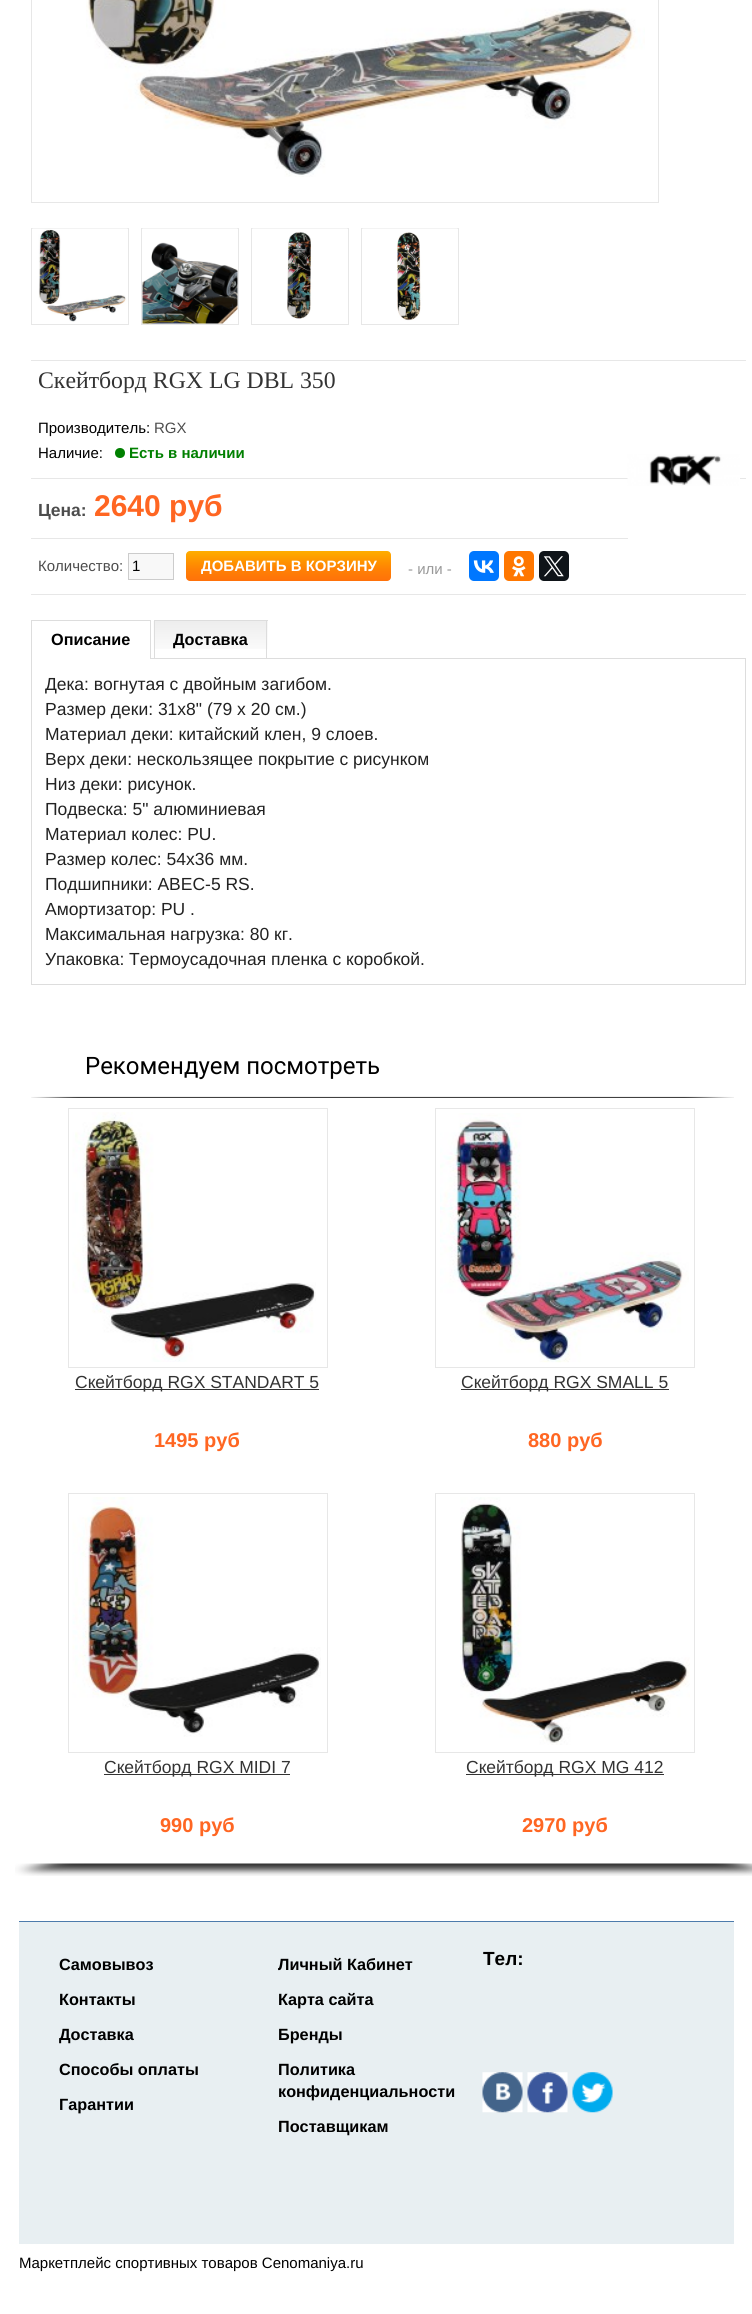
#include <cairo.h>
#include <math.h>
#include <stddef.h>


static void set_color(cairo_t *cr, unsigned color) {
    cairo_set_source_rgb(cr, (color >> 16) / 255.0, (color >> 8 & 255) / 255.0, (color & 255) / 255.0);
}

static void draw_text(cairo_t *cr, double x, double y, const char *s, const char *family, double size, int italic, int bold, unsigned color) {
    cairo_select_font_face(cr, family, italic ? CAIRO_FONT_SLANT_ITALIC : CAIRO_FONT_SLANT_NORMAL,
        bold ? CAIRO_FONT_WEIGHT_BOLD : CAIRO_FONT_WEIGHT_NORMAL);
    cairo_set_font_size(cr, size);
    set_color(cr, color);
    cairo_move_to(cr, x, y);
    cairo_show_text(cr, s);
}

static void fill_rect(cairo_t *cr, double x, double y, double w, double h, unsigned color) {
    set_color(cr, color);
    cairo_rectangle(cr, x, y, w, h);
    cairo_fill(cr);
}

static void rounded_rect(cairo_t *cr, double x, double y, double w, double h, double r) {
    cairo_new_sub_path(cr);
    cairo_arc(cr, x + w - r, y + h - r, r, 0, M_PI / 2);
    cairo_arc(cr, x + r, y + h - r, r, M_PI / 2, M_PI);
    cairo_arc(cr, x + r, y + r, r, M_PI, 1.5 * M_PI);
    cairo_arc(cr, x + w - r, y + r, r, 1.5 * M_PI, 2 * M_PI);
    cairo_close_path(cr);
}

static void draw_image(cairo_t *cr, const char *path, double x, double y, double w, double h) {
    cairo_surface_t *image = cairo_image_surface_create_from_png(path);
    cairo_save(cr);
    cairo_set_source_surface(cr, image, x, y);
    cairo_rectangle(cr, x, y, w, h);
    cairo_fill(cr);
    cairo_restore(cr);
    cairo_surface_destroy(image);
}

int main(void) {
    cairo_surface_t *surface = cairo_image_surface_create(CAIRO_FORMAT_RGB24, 752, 2314);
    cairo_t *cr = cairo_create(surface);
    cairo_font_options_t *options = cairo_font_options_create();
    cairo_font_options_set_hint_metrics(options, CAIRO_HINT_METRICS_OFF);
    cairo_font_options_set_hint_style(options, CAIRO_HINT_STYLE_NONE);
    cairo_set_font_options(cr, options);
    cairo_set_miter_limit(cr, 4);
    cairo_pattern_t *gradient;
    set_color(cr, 0xFFFFFF);
    cairo_paint(cr);
    cairo_rectangle(cr, 31.5, -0.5, 627, 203);
    set_color(cr, 0xE7E7E7);
    cairo_set_line_width(cr, 1);
    cairo_stroke(cr);
    draw_image(cr, "assets/img1.png", 86, 0, 559, 177);
    cairo_rectangle(cr, 31.5, 228.5, 97, 96);
    cairo_stroke(cr);
    draw_image(cr, "assets/img2.png", 32, 228, 96, 94);
    cairo_rectangle(cr, 141.5, 228.5, 97, 96);
    cairo_stroke(cr);
    draw_image(cr, "assets/img3.png", 142, 228, 96, 96);
    cairo_rectangle(cr, 251.5, 228.5, 97, 96);
    cairo_stroke(cr);
    draw_image(cr, "assets/img4.png", 252, 228, 96, 91);
    cairo_rectangle(cr, 361.5, 228.5, 97, 96);
    cairo_stroke(cr);
    draw_image(cr, "assets/img5.png", 362, 228, 96, 93);
    fill_rect(cr, 31, 360, 715, 1, 0xE7E7E7);
    fill_rect(cr, 31, 478, 715, 1, 0xE7E7E7);
    draw_text(cr, 38, 388, "Скейтборд RGX LG DBL 350", "Liberation Serif", 23.75, 0, 0, 0x333333);
    draw_text(cr, 38, 433, "Производитель:", "Liberation Sans", 15, 0, 0, 0x000000);
    draw_text(cr, 154, 433, "RGX", "Liberation Sans", 15, 0, 0, 0x4D4D4D);
    draw_image(cr, "assets/img6.png", 627, 454, 113, 32);
    draw_text(cr, 38, 458, "Наличие:", "Liberation Sans", 15, 0, 0, 0x000000);
    set_color(cr, 0x008000);
    cairo_new_path(cr);
    cairo_arc(cr, 120, 453, 5, 0, 2 * M_PI);
    cairo_fill(cr);
    draw_text(cr, 129, 458, "Есть в наличии", "Liberation Sans", 15, 0, 1, 0x008000);
    fill_rect(cr, 31, 538, 597, 1, 0xE7E7E7);
    draw_text(cr, 38, 516, "Цена:", "Liberation Sans", 17.5, 0, 1, 0x4D4D4D);
    draw_text(cr, 94, 516, "2640 руб", "Liberation Sans", 30, 0, 1, 0xFF6622);
    fill_rect(cr, 31, 594, 715, 1, 0xE7E7E7);
    draw_text(cr, 38, 571, "Количество:", "Liberation Sans", 15, 0, 0, 0x4D4D4D);
    set_color(cr, 0xF8F8F8);
    cairo_rectangle(cr, 128.5, 553.5, 45, 26);
    cairo_fill_preserve(cr);
    set_color(cr, 0xCCCCCC);
    cairo_stroke(cr);
    draw_text(cr, 132, 571, "1", "Liberation Sans", 15, 0, 0, 0x000000);
    gradient = cairo_pattern_create_linear(289, 551, 289, 581);
    cairo_pattern_add_color_stop_rgba(gradient, 0, 1, 0.682, 0, 1);
    cairo_pattern_add_color_stop_rgba(gradient, 0.4, 1, 0.565, 0, 1);
    cairo_pattern_add_color_stop_rgba(gradient, 0.6, 1, 0.51, 0.016, 1);
    cairo_pattern_add_color_stop_rgba(gradient, 1, 1, 0.443, 0.039, 1);
    cairo_set_source(cr, gradient);
    cairo_pattern_destroy(gradient);
    rounded_rect(cr, 186, 551, 205, 30, 4);
    cairo_fill(cr);
    draw_text(cr, 201, 571, "ДОБАВИТЬ В КОРЗИНУ", "Liberation Sans", 15, 0, 1, 0xFFFFFF);
    draw_text(cr, 408, 574, "- или -", "Liberation Sans", 15, 0, 0, 0x999999);
    set_color(cr, 0x0077FF);
    rounded_rect(cr, 469, 551, 30, 30, 5);
    cairo_fill(cr);
    draw_image(cr, "assets/img7.png", 473, 560, 21, 13);
    set_color(cr, 0xFF7700);
    rounded_rect(cr, 504, 551, 30, 30, 5);
    cairo_fill(cr);
    draw_image(cr, "assets/img8.png", 512, 556, 14, 21);
    set_color(cr, 0x0F1419);
    rounded_rect(cr, 539, 551, 30, 30, 5);
    cairo_fill(cr);
    draw_image(cr, "assets/img9.png", 543, 556, 21, 21);
    fill_rect(cr, 151, 658, 595, 1, 0xDDDDDD);
    fill_rect(cr, 31, 620, 120, 1, 0xDDDDDD);
    fill_rect(cr, 150, 620, 1, 39, 0xDDDDDD);
    fill_rect(cr, 31, 620, 1, 39, 0xDDDDDD);
    draw_text(cr, 51, 645, "Описание", "Liberation Sans", 16.25, 0, 1, 0x000000);
    draw_image(cr, "assets/img10.png", 153, 621, 115, 28);
    fill_rect(cr, 154, 620, 114, 1, 0xDDDDDD);
    fill_rect(cr, 266, 620, 1, 38, 0xDDDDDD);
    fill_rect(cr, 154, 620, 1, 38, 0xDDDDDD);
    draw_text(cr, 173, 645, "Доставка", "Liberation Sans", 16.25, 0, 1, 0x000000);
    fill_rect(cr, 745, 659, 1, 326, 0xDDDDDD);
    fill_rect(cr, 31, 984, 715, 1, 0xDDDDDD);
    fill_rect(cr, 31, 659, 1, 326, 0xDDDDDD);
    draw_text(cr, 45, 690, "Дека: вогнутая с двойным загибом.", "Liberation Sans", 17.5, 0, 0, 0x222222);
    draw_text(cr, 45, 715, "Размер деки: 31x8\" (79 x 20 см.)", "Liberation Sans", 17.5, 0, 0, 0x222222);
    draw_text(cr, 45, 740, "Материал деки: китайский клен, 9 слоев.", "Liberation Sans", 17.5, 0, 0, 0x222222);
    draw_text(cr, 45, 765, "Верх деки: нескользящее покрытие с рисунком", "Liberation Sans", 17.5, 0, 0, 0x222222);
    draw_text(cr, 45, 790, "Низ деки: рисунок.", "Liberation Sans", 17.5, 0, 0, 0x222222);
    draw_text(cr, 45, 815, "Подвеска: 5\" алюминиевая", "Liberation Sans", 17.5, 0, 0, 0x222222);
    draw_text(cr, 45, 840, "Материал колес: PU.", "Liberation Sans", 17.5, 0, 0, 0x222222);
    draw_text(cr, 45, 865, "Размер колес: 54x36 мм.", "Liberation Sans", 17.5, 0, 0, 0x222222);
    draw_text(cr, 45, 890, "Подшипники: ABEC-5 RS.", "Liberation Sans", 17.5, 0, 0, 0x222222);
    draw_text(cr, 45, 915, "Амортизатор: PU .", "Liberation Sans", 17.5, 0, 0, 0x222222);
    draw_text(cr, 45, 940, "Максимальная нагрузка: 80 кг.", "Liberation Sans", 17.5, 0, 0, 0x222222);
    draw_text(cr, 45, 965, "Упаковка: Термоусадочная пленка с коробкой.", "Liberation Sans", 17.5, 0, 0, 0x222222);
    draw_image(cr, "assets/img11.png", 31, 1096, 703, 2);
    draw_text(cr, 85, 1074, "Рекомендуем посмотреть", "Roboto", 24, 0, 0, 0x000000);
    draw_image(cr, "assets/img12.png", 15, 1863, 737, 13);
    cairo_rectangle(cr, 68.5, 1108.5, 259, 259);
    set_color(cr, 0xE7E7E7);
    cairo_stroke(cr);
    draw_image(cr, "assets/img13.png", 72, 1112, 244, 250);
    fill_rect(cr, 75, 1389, 244, 1, 0x333333);
    draw_text(cr, 75, 1388, "Скейтборд RGX STANDART 5", "Liberation Sans", 17.5, 0, 0, 0x333333);
    draw_text(cr, 154, 1447, "1495 руб", "Liberation Sans", 20, 0, 1, 0xFF6622);
    cairo_rectangle(cr, 435.5, 1108.5, 259, 259);
    set_color(cr, 0xE7E7E7);
    cairo_stroke(cr);
    draw_image(cr, "assets/img14.png", 440, 1113, 249, 250);
    fill_rect(cr, 461, 1389, 208, 1, 0x333333);
    draw_text(cr, 461, 1388, "Скейтборд RGX SMALL 5", "Liberation Sans", 17.5, 0, 0, 0x333333);
    draw_text(cr, 528, 1447, "880 руб", "Liberation Sans", 20, 0, 1, 0xFF6622);
    cairo_rectangle(cr, 68.5, 1493.5, 259, 259);
    set_color(cr, 0xE7E7E7);
    cairo_stroke(cr);
    draw_image(cr, "assets/img15.png", 72, 1497, 249, 240);
    fill_rect(cr, 104, 1774, 186, 1, 0x333333);
    draw_text(cr, 104, 1773, "Скейтборд RGX MIDI 7", "Liberation Sans", 17.5, 0, 0, 0x333333);
    draw_text(cr, 160, 1832, "990 руб", "Liberation Sans", 20, 0, 1, 0xFF6622);
    cairo_rectangle(cr, 435.5, 1493.5, 259, 259);
    set_color(cr, 0xE7E7E7);
    cairo_stroke(cr);
    draw_image(cr, "assets/img16.png", 460, 1497, 230, 248);
    fill_rect(cr, 466, 1774, 198, 1, 0x333333);
    draw_text(cr, 466, 1773, "Скейтборд RGX MG 412", "Liberation Sans", 17.5, 0, 0, 0x333333);
    draw_text(cr, 522, 1832, "2970 руб", "Liberation Sans", 20, 0, 1, 0xFF6622);
    fill_rect(cr, 19, 1922, 715, 322, 0xE8EFF2);
    fill_rect(cr, 19, 1921, 715, 1, 0x4D7BAC);
    draw_text(cr, 59, 1970, "Самовывоз", "Liberation Sans", 16.25, 0, 1, 0x000000);
    draw_text(cr, 59, 2005, "Контакты", "Liberation Sans", 16.25, 0, 1, 0x000000);
    draw_text(cr, 59, 2040, "Доставка", "Liberation Sans", 16.25, 0, 1, 0x000000);
    draw_text(cr, 59, 2075, "Способы оплаты", "Liberation Sans", 16.25, 0, 1, 0x000000);
    draw_text(cr, 59, 2110, "Гарантии", "Liberation Sans", 16.25, 0, 1, 0x000000);
    draw_text(cr, 278, 1970, "Личный Кабинет", "Liberation Sans", 16.25, 0, 1, 0x000000);
    draw_text(cr, 278, 2005, "Карта сайта", "Liberation Sans", 16.25, 0, 1, 0x000000);
    draw_text(cr, 278, 2040, "Бренды", "Liberation Sans", 16.25, 0, 1, 0x000000);
    draw_text(cr, 278, 2075, "Политика", "Liberation Sans", 16.25, 0, 1, 0x000000);
    draw_text(cr, 278, 2097, "конфиденциальности", "Liberation Sans", 16.25, 0, 1, 0x000000);
    draw_text(cr, 278, 2132, "Поставщикам", "Liberation Sans", 16.25, 0, 1, 0x000000);
    draw_text(cr, 483, 1965, "Тел:", "Liberation Sans", 19, 0, 1, 0x000000);
    draw_image(cr, "assets/img17.png", 482, 2072, 41, 41);
    draw_image(cr, "assets/img18.png", 527, 2072, 41, 41);
    draw_image(cr, "assets/img19.png", 572, 2072, 41, 41);
    draw_text(cr, 19, 2268, "Маркетплейс спортивных товаров Cenomaniya.ru", "Liberation Sans", 15, 0, 0, 0x000000);
    cairo_surface_write_to_png(surface, "output.png");
    cairo_font_options_destroy(options);
    cairo_destroy(cr);
    cairo_surface_destroy(surface);
    return 0;
}
